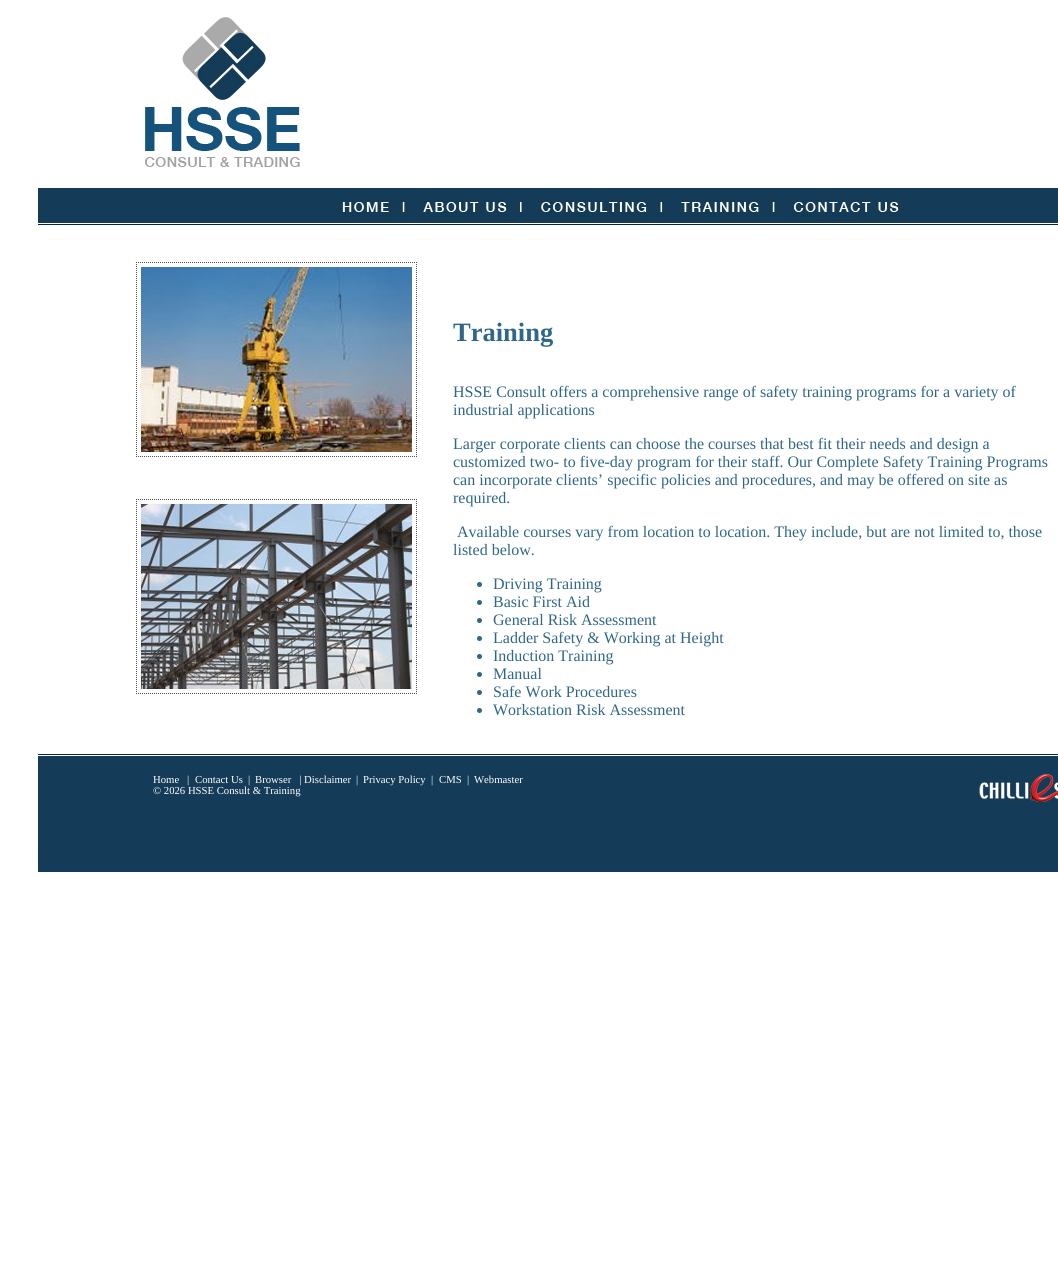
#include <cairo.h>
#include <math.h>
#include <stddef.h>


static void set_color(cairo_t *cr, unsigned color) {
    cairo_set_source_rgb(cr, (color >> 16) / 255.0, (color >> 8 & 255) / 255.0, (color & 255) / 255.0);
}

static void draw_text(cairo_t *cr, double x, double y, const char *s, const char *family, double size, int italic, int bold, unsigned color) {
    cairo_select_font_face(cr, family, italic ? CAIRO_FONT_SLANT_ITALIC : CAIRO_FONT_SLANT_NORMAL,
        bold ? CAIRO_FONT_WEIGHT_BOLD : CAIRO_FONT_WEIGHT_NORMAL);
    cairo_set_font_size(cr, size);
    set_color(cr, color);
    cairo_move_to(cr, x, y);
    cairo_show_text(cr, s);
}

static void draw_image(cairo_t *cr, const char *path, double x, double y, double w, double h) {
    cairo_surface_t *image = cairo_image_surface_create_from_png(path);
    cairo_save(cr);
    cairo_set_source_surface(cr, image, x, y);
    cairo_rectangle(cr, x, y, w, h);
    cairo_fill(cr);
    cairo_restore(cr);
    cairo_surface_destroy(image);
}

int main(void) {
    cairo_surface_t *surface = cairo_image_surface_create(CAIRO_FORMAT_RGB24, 1058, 1263);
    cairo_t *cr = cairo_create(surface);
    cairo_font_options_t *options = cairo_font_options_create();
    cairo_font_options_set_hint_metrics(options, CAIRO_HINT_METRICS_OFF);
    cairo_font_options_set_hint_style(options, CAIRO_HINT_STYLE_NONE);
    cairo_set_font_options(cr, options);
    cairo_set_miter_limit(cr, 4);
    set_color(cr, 0xFFFFFF);
    cairo_paint(cr);
    draw_image(cr, "assets/img1.png", 145, 17, 156, 150);
    draw_image(cr, "assets/img2.png", 38, 188, 90, 37);
    draw_image(cr, "assets/img3.png", 128, 188, 211, 37);
    draw_image(cr, "assets/img4.png", 339, 188, 66, 37);
    draw_image(cr, "assets/img5.png", 405, 188, 117, 37);
    draw_image(cr, "assets/img6.png", 522, 188, 140, 37);
    draw_image(cr, "assets/img7.png", 662, 188, 113, 37);
    draw_image(cr, "assets/img8.png", 775, 188, 133, 37);
    draw_image(cr, "assets/img9.png", 908, 188, 150, 37);
    draw_image(cr, "assets/img10.png", 136, 499, 281, 195);
    draw_image(cr, "assets/img11.png", 136, 262, 281, 195);
    draw_text(cr, 453, 341, "Training", "Liberation Serif", 26.5, 0, 1, 0x2F668A);
    draw_text(cr, 453, 397, "HSSE Consult offers a comprehensive range of safety training programs for a variety of", "Liberation Serif", 16, 0, 0, 0x2F668A);
    draw_text(cr, 453, 415, "industrial applications", "Liberation Serif", 16, 0, 0, 0x2F668A);
    draw_text(cr, 453, 449, "Larger corporate clients can choose the courses that best fit their needs and design a", "Liberation Serif", 16, 0, 0, 0x2F668A);
    draw_text(cr, 453, 467, "customized two- to five-day program for their staff. Our Complete Safety Training Programs", "Liberation Serif", 16, 0, 0, 0x2F668A);
    draw_text(cr, 453, 485, "can incorporate clients’ specific policies and procedures, and may be offered on site as", "Liberation Serif", 16, 0, 0, 0x2F668A);
    draw_text(cr, 453, 503, "required.", "Liberation Serif", 16, 0, 0, 0x2F668A);
    draw_text(cr, 457, 537, "Available courses vary from location to location. They include, but are not limited to, those", "Liberation Serif", 16, 0, 0, 0x2F668A);
    draw_text(cr, 453, 555, "listed below.", "Liberation Serif", 16, 0, 0, 0x2F668A);
    cairo_new_path(cr);
    cairo_arc(cr, 479.5, 584.5, 2.5, 0, 2 * M_PI);
    cairo_fill(cr);
    draw_text(cr, 493, 589, "Driving Training", "Liberation Serif", 16, 0, 0, 0x2F668A);
    cairo_new_path(cr);
    cairo_arc(cr, 479.5, 602.5, 2.5, 0, 2 * M_PI);
    cairo_fill(cr);
    draw_text(cr, 493, 607, "Basic First Aid", "Liberation Serif", 16, 0, 0, 0x2F668A);
    cairo_new_path(cr);
    cairo_arc(cr, 479.5, 620.5, 2.5, 0, 2 * M_PI);
    cairo_fill(cr);
    draw_text(cr, 493, 625, "General Risk Assessment", "Liberation Serif", 16, 0, 0, 0x2F668A);
    cairo_new_path(cr);
    cairo_arc(cr, 479.5, 638.5, 2.5, 0, 2 * M_PI);
    cairo_fill(cr);
    draw_text(cr, 493, 643, "Ladder Safety & Working at Height", "Liberation Serif", 16, 0, 0, 0x2F668A);
    cairo_new_path(cr);
    cairo_arc(cr, 479.5, 656.5, 2.5, 0, 2 * M_PI);
    cairo_fill(cr);
    draw_text(cr, 493, 661, "Induction Training", "Liberation Serif", 16, 0, 0, 0x2F668A);
    cairo_new_path(cr);
    cairo_arc(cr, 479.5, 674.5, 2.5, 0, 2 * M_PI);
    cairo_fill(cr);
    draw_text(cr, 493, 679, "Manual", "Liberation Serif", 16, 0, 0, 0x2F668A);
    cairo_new_path(cr);
    cairo_arc(cr, 479.5, 692.5, 2.5, 0, 2 * M_PI);
    cairo_fill(cr);
    draw_text(cr, 493, 697, "Safe Work Procedures", "Liberation Serif", 16, 0, 0, 0x2F668A);
    cairo_new_path(cr);
    cairo_arc(cr, 479.5, 710.5, 2.5, 0, 2 * M_PI);
    cairo_fill(cr);
    draw_text(cr, 493, 715, "Workstation Risk Assessment", "Liberation Serif", 16, 0, 0, 0x2F668A);
    draw_image(cr, "assets/img12.png", 38, 754, 1020, 118);
    draw_text(cr, 153, 783, "Home", "Liberation Serif", 10.7, 0, 0, 0xFFFFFF);
    draw_text(cr, 187, 783, "|", "Liberation Serif", 10.7, 0, 0, 0xFFFFFF);
    draw_text(cr, 195, 783, "Contact Us", "Liberation Serif", 10.7, 0, 0, 0xFFFFFF);
    draw_text(cr, 248, 783, "|", "Liberation Serif", 10.7, 0, 0, 0xFFFFFF);
    draw_text(cr, 255, 783, "Browser   | Disclaimer", "Liberation Serif", 10.7, 0, 0, 0xFFFFFF);
    draw_text(cr, 356, 783, "|", "Liberation Serif", 10.7, 0, 0, 0xFFFFFF);
    draw_text(cr, 363, 783, "Privacy Policy", "Liberation Serif", 10.7, 0, 0, 0xFFFFFF);
    draw_text(cr, 431, 783, "|", "Liberation Serif", 10.7, 0, 0, 0xFFFFFF);
    draw_text(cr, 439, 783, "CMS", "Liberation Serif", 10.7, 0, 0, 0xFFFFFF);
    draw_text(cr, 467, 783, "|", "Liberation Serif", 10.7, 0, 0, 0xFFFFFF);
    draw_text(cr, 474, 783, "Webmaster", "Liberation Serif", 10.7, 0, 0, 0xFFFFFF);
    draw_text(cr, 153, 794, "© 2026 HSSE Consult & Training", "Liberation Serif", 10.7, 0, 0, 0xFFFFFF);
    draw_image(cr, "assets/img13.png", 979, 774, 79, 28);
    cairo_surface_write_to_png(surface, "output.png");
    cairo_font_options_destroy(options);
    cairo_destroy(cr);
    cairo_surface_destroy(surface);
    return 0;
}
